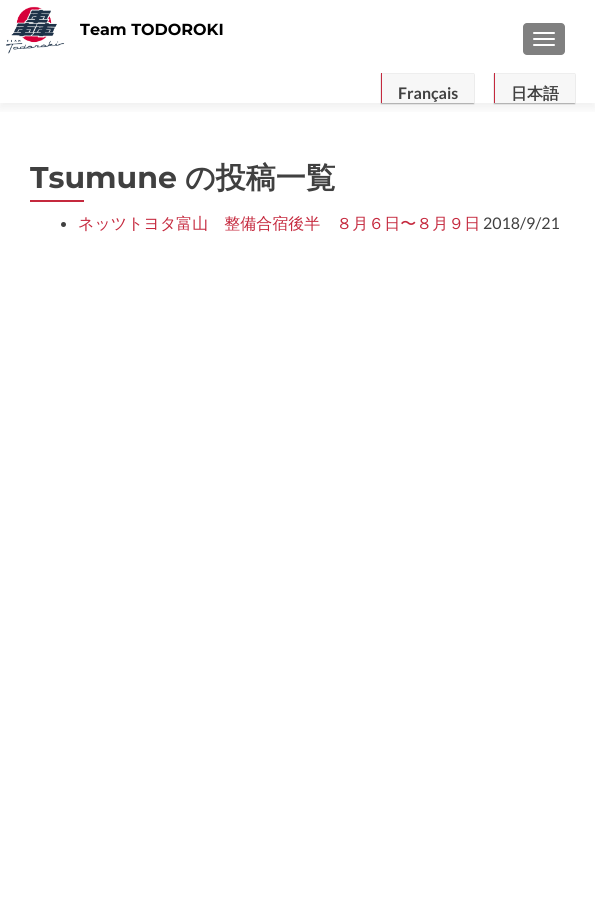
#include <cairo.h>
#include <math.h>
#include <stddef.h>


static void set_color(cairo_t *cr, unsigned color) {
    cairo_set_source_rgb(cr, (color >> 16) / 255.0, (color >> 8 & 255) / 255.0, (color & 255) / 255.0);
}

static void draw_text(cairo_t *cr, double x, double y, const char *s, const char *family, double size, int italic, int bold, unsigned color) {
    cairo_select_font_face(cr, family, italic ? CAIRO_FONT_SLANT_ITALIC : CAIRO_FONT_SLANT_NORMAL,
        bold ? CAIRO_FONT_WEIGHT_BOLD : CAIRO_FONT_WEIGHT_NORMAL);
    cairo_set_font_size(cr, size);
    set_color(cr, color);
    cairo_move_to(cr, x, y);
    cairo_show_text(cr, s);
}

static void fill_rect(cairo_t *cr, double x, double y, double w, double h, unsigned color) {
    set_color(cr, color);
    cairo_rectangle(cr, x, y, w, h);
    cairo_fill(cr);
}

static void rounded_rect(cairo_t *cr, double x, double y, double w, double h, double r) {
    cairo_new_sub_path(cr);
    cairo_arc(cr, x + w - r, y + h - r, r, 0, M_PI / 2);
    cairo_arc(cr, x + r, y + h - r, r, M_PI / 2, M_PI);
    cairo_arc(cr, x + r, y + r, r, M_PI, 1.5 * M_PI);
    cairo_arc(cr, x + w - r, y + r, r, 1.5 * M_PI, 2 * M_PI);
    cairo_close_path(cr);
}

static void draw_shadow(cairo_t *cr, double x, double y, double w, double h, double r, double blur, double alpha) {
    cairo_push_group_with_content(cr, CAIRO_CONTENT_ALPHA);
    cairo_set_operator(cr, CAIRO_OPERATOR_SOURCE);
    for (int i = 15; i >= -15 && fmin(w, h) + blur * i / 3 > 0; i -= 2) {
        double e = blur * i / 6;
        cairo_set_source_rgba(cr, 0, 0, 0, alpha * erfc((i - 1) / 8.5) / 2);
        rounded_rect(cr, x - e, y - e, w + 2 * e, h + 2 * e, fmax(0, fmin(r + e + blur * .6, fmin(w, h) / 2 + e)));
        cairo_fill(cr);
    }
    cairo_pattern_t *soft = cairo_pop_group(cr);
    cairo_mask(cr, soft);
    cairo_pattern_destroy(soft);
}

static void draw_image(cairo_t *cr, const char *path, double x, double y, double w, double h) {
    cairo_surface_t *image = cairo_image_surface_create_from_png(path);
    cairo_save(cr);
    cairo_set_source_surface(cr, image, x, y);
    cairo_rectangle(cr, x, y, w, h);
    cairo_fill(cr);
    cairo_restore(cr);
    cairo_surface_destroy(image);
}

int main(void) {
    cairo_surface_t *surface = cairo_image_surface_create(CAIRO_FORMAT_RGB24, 595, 919);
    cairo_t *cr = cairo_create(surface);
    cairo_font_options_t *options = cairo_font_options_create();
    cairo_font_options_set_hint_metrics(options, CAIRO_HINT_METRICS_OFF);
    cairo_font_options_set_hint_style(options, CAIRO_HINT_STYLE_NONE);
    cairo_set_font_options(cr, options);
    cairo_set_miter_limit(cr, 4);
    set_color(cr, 0xFFFFFF);
    cairo_paint(cr);
    cairo_save(cr);
    cairo_rectangle(cr, 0, 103, 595, 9);
    cairo_clip(cr);
    set_color(cr, 0x323232);
    draw_shadow(cr, 0, 5, 595, 103, 0, 5.5, 0.08);
    cairo_restore(cr);
    draw_image(cr, "assets/img1.png", 6, 6, 59, 48);
    draw_text(cr, 80, 35, "Team TODOROKI", "Montserrat", 16, 0, 1, 0x000000);
    set_color(cr, 0x808080);
    rounded_rect(cr, 523, 23, 42, 32, 4);
    cairo_fill(cr);
    set_color(cr, 0xFFFFFF);
    rounded_rect(cr, 533, 32, 22, 2, 1);
    cairo_fill(cr);
    rounded_rect(cr, 533, 38, 22, 2, 1);
    cairo_fill(cr);
    rounded_rect(cr, 533, 44, 22, 2, 1);
    cairo_fill(cr);
    set_color(cr, 0x000000);
    draw_shadow(cr, 381, 74, 93, 30, 0, 0.5, 0.29);
    fill_rect(cr, 382, 74, 92, 29, 0xF7F7F7);
    fill_rect(cr, 381, 73, 1, 30, 0xC5293E);
    draw_text(cr, 398, 99, "Français", "Lato", 16, 0, 1, 0x404040);
    set_color(cr, 0x000000);
    draw_shadow(cr, 494, 74, 81, 30, 0, 0.5, 0.29);
    fill_rect(cr, 495, 74, 80, 29, 0xF7F7F7);
    fill_rect(cr, 494, 73, 1, 30, 0xC5293E);
    draw_text(cr, 511, 99, "日本語", "WenQuanYi Zen Hei", 16, 0, 1, 0x404040);
    draw_text(cr, 30, 188, "Tsumune", "Montserrat", 30, 0, 1, 0x404040);
    draw_text(cr, 185, 188, "の投稿一覧", "WenQuanYi Zen Hei", 30, 0, 1, 0x404040);
    fill_rect(cr, 30, 200, 54, 2, 0xC5293E);
    set_color(cr, 0x404040);
    cairo_new_path(cr);
    cairo_arc(cr, 63.5, 224.5, 2.5, 0, 2 * M_PI);
    cairo_fill(cr);
    draw_text(cr, 78, 229, "ネッツトヨタ富山　整備合宿後半　８月６日〜８月９日", "WenQuanYi Zen Hei Medium", 16, 0, 0, 0xC5293E);
    draw_text(cr, 483, 229, "2018/9/21", "Lato", 16, 0, 0, 0x404040);
    cairo_surface_write_to_png(surface, "output.png");
    cairo_font_options_destroy(options);
    cairo_destroy(cr);
    cairo_surface_destroy(surface);
    return 0;
}
